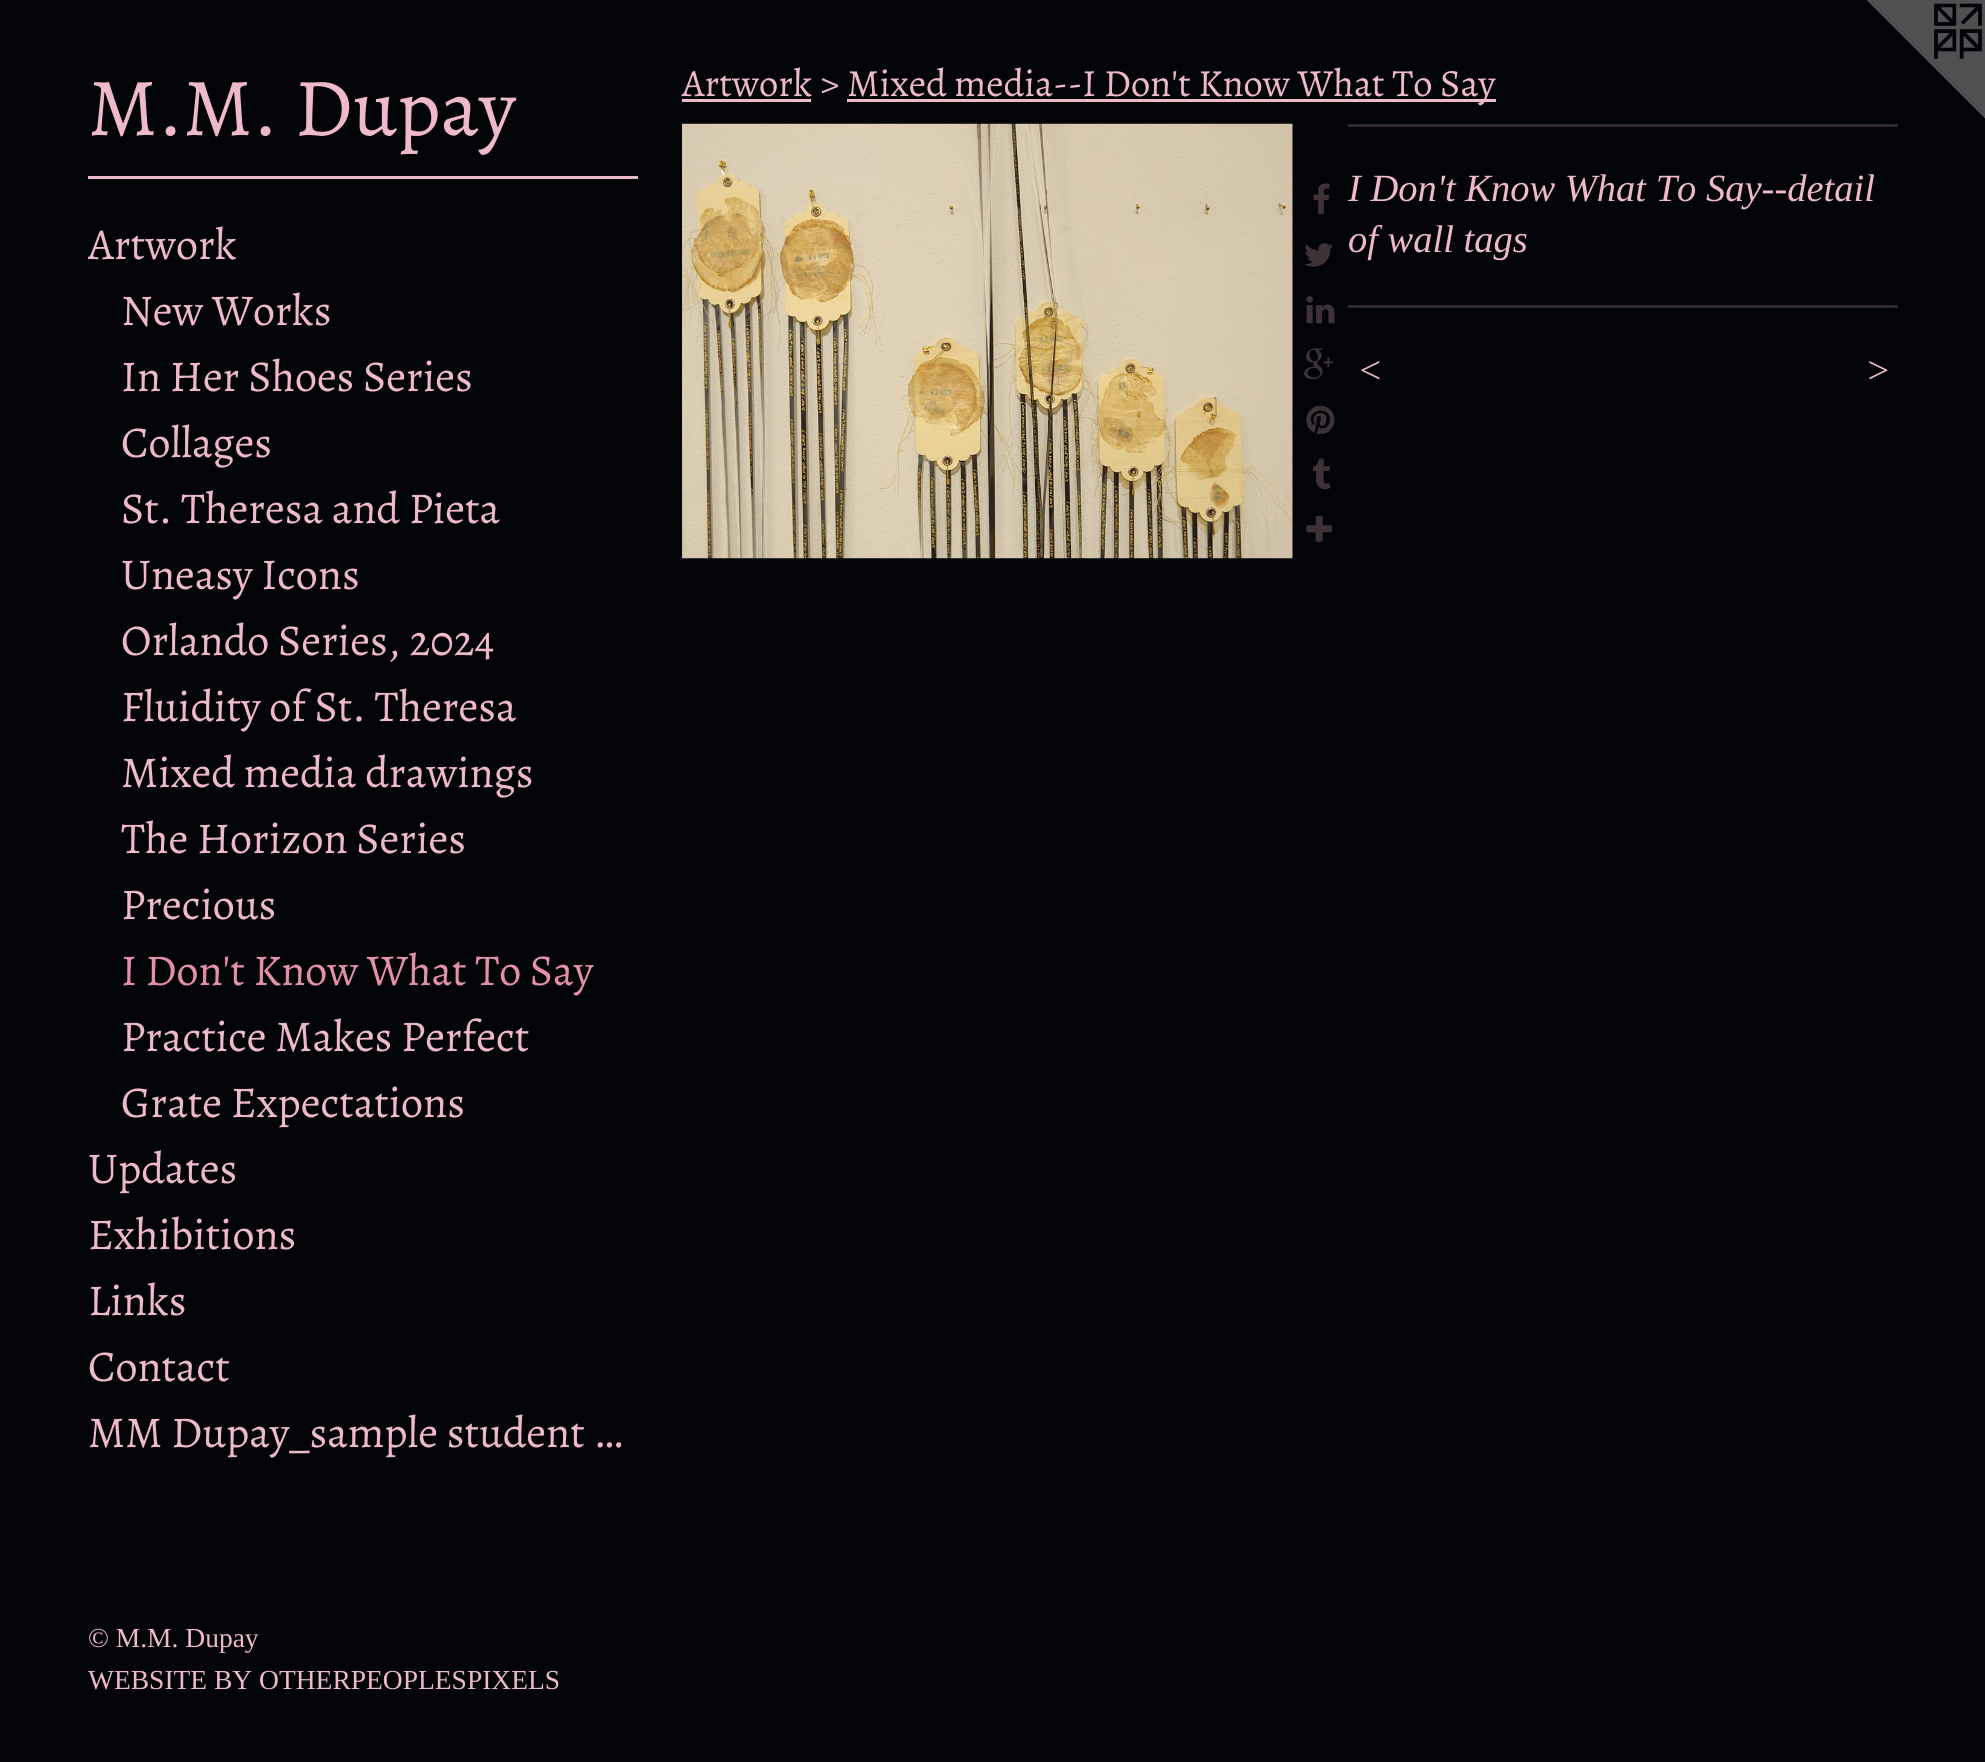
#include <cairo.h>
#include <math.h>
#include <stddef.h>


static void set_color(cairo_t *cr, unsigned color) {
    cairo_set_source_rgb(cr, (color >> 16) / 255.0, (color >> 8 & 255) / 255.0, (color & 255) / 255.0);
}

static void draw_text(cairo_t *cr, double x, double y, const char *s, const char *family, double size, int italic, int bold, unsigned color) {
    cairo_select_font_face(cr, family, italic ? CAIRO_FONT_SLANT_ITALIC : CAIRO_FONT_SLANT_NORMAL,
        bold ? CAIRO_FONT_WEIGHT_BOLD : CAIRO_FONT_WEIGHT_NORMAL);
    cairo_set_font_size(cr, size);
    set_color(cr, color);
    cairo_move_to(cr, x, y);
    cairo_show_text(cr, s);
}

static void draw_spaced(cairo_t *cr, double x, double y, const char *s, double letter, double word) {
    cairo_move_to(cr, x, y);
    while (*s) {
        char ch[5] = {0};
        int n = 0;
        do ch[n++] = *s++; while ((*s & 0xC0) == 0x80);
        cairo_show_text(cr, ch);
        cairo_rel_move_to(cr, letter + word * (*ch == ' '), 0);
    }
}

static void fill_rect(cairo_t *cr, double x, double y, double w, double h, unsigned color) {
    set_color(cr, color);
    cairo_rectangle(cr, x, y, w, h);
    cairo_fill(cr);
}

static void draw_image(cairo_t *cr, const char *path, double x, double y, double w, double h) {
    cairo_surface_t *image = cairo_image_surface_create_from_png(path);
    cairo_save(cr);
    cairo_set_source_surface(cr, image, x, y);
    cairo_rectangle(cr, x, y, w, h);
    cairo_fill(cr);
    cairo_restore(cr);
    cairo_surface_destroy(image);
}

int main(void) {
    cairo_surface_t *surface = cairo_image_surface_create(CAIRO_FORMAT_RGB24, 1985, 1762);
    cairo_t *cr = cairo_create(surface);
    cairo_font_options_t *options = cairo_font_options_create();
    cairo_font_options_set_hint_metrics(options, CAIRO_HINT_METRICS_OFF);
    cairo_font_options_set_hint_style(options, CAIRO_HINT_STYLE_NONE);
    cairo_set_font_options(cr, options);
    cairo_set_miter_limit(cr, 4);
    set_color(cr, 0x030407);
    cairo_paint(cr);
    draw_text(cr, 88, 135, "M.M. Dupay", "Alegreya", 82.5, 0, 0, 0xEEB9C9);
    fill_rect(cr, 88, 176, 550, 3, 0xEEB9C9);
    cairo_save(cr);
    cairo_rectangle(cr, 88, 212, 550, 66);
    cairo_clip(cr);
    draw_text(cr, 88, 259, "Artwork", "Alegreya", 44, 0, 0, 0xEEB9C9);
    cairo_restore(cr);
    draw_text(cr, 121, 325, "New Works", "Alegreya", 44, 0, 0, 0xEEB9C9);
    draw_text(cr, 121, 391, "In Her Shoes Series", "Alegreya", 44, 0, 0, 0xEEB9C9);
    draw_text(cr, 121, 457, "Collages", "Alegreya", 44, 0, 0, 0xEEB9C9);
    draw_text(cr, 121, 523, "St. Theresa and Pieta", "Alegreya", 44, 0, 0, 0xEEB9C9);
    draw_text(cr, 121, 589, "Uneasy Icons", "Alegreya", 44, 0, 0, 0xEEB9C9);
    draw_text(cr, 121, 655, "Orlando Series, 2024", "Alegreya", 44, 0, 0, 0xEEB9C9);
    draw_text(cr, 121, 721, "Fluidity of St. Theresa", "Alegreya", 44, 0, 0, 0xEEB9C9);
    draw_text(cr, 121, 787, "Mixed media drawings", "Alegreya", 44, 0, 0, 0xEEB9C9);
    draw_text(cr, 121, 853, "The Horizon Series", "Alegreya", 44, 0, 0, 0xEEB9C9);
    draw_text(cr, 121, 919, "Precious", "Alegreya", 44, 0, 0, 0xEEB9C9);
    draw_text(cr, 121, 985, "I Don't Know What To Say", "Alegreya", 44, 0, 0, 0xE490A9);
    draw_text(cr, 121, 1051, "Practice Makes Perfect", "Alegreya", 44, 0, 0, 0xEEB9C9);
    draw_text(cr, 121, 1117, "Grate Expectations", "Alegreya", 44, 0, 0, 0xEEB9C9);
    draw_text(cr, 88, 1183, "Updates", "Alegreya", 44, 0, 0, 0xEEB9C9);
    draw_text(cr, 88, 1249, "Exhibitions", "Alegreya", 44, 0, 0, 0xEEB9C9);
    draw_text(cr, 88, 1315, "Links", "Alegreya", 44, 0, 0, 0xEEB9C9);
    draw_text(cr, 88, 1381, "Contact", "Alegreya", 44, 0, 0, 0xEEB9C9);
    draw_text(cr, 88, 1447, "MM Dupay_sample student …", "Alegreya", 44, 0, 0, 0xEEB9C9);
    draw_text(cr, 88, 1647, "© M.M. Dupay", "Liberation Serif", 27.5, 0, 0, 0xEEB9C9);
    draw_text(cr, 88, 1689, "WEBSITE BY OTHERPEOPLESPIXELS", "Liberation Serif", 27.5, 0, 0, 0xEEB9C9);
    draw_text(cr, 682, 96, "Artwork >", "Alegreya", 38.5, 0, 0, 0xEEB9C9);
    fill_rect(cr, 682, 99, 129, 3, 0xEEB9C9);
    fill_rect(cr, 847, 99, 649, 3, 0xEEB9C9);
    draw_text(cr, 847, 96, "Mixed media--I Don't Know What To Say", "Alegreya", 38.5, 0, 0, 0xEEB9C9);
    draw_image(cr, "assets/img1.png", 682, 123, 611, 436);
    draw_image(cr, "assets/img2.png", 1313, 183, 17, 32);
    draw_image(cr, "assets/img3.png", 1304, 243, 29, 24);
    draw_image(cr, "assets/img4.png", 1306, 296, 29, 28);
    draw_image(cr, "assets/img5.png", 1304, 348, 30, 31);
    draw_image(cr, "assets/img6.png", 1306, 405, 29, 29);
    draw_image(cr, "assets/img7.png", 1313, 458, 18, 31);
    draw_image(cr, "assets/img8.png", 1306, 515, 27, 27);
    fill_rect(cr, 1348, 124, 550, 3, 0x32282E);
    draw_text(cr, 1348, 201, "I Don't Know What To Say--detail", "Liberation Serif", 38.5, 1, 0, 0xEEB9C9);
    draw_text(cr, 1348, 252, "of wall tags", "Liberation Serif", 38.5, 1, 0, 0xEEB9C9);
    fill_rect(cr, 1348, 305, 550, 3, 0x32282E);
    set_color(cr, 0xEEB9C9);
    draw_spaced(cr, 1357, 383, "<", 3, 0);
    draw_spaced(cr, 1865, 383, ">", 3, 0);
    draw_image(cr, "assets/img9.png", 1867, 0, 118, 119);
    cairo_surface_write_to_png(surface, "output.png");
    cairo_font_options_destroy(options);
    cairo_destroy(cr);
    cairo_surface_destroy(surface);
    return 0;
}
